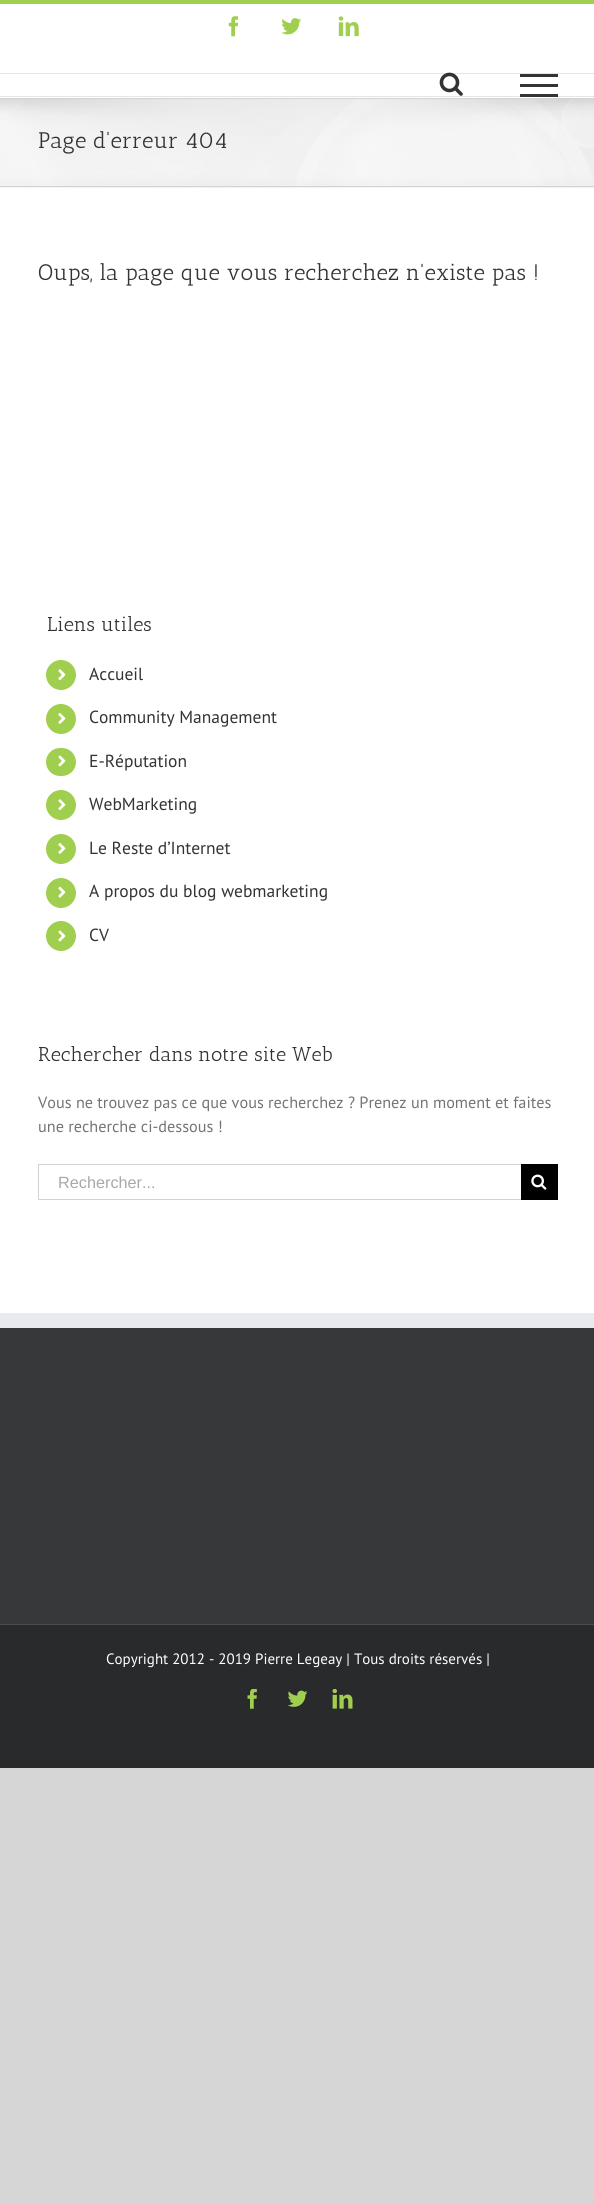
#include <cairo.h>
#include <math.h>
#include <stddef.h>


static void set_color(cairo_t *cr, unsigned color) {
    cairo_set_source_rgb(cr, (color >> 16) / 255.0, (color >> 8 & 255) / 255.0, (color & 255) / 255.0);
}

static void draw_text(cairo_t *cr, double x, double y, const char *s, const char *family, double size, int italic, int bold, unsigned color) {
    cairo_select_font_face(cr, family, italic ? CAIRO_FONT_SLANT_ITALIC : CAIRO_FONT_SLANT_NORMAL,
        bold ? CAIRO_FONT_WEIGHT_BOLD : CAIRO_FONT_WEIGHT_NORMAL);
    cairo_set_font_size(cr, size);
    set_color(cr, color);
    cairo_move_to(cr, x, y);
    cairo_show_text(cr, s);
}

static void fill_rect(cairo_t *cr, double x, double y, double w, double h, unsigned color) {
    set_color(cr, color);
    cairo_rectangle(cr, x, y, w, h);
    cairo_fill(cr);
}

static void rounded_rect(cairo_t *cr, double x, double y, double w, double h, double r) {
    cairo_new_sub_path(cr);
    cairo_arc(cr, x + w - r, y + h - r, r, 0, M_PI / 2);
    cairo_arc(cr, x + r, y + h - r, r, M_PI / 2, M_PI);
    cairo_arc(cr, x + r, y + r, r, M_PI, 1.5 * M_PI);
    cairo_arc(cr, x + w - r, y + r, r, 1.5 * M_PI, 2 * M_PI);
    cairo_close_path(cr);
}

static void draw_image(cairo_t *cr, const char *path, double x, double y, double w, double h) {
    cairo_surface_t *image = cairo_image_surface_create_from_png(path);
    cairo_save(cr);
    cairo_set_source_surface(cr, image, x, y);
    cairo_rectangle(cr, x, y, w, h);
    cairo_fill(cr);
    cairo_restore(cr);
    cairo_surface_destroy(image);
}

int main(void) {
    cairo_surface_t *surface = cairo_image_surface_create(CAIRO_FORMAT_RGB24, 594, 2203);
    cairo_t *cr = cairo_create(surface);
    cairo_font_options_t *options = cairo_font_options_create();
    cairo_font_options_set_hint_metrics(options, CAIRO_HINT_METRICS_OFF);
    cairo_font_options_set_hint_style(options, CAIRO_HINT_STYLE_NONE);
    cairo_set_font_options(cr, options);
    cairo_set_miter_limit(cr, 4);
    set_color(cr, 0xD7D6D6);
    cairo_paint(cr);
    fill_rect(cr, 0, 4, 594, 1309, 0xFFFFFF);
    fill_rect(cr, 0, 0, 594, 4, 0xA0CE4E);
    fill_rect(cr, 0, 73, 594, 1, 0xE5E5E5);
    draw_image(cr, "assets/img1.png", 228, 16, 11, 21);
    draw_image(cr, "assets/img2.png", 281, 18, 21, 17);
    draw_image(cr, "assets/img3.png", 338, 16, 21, 21);
    fill_rect(cr, 0, 96, 594, 1, 0xE5E5E5);
    draw_image(cr, "assets/img4.png", 439, 72, 24, 24);
    fill_rect(cr, 520, 74, 38, 3, 0x333333);
    fill_rect(cr, 520, 84, 38, 3, 0x333333);
    fill_rect(cr, 520, 94, 38, 3, 0x333333);
    fill_rect(cr, 0, 99, 594, 89, 0xF6F6F6);
    draw_image(cr, "assets/img5.png", 0, 99, 594, 89);
    fill_rect(cr, 0, 98, 594, 1, 0xD2D3D4);
    fill_rect(cr, 0, 186, 594, 1, 0xD2D3D4);
    draw_text(cr, 38, 148, "Page d'erreur 404", "Antic Slab", 22.5, 0, 0, 0x333333);
    draw_text(cr, 38, 280, "Oups, la page que vous recherchez n'existe pas !", "Antic Slab", 22.5, 0, 0, 0x333333);
    draw_text(cr, 47, 631, "Liens utiles", "Antic Slab", 20, 0, 0, 0x333333);
    set_color(cr, 0xA0CE4E);
    cairo_new_path(cr);
    cairo_arc(cr, 61, 675, 15, 0, 2 * M_PI);
    cairo_fill(cr);
    draw_image(cr, "assets/img6.png", 58, 669, 8, 12);
    draw_text(cr, 89, 680, "Accueil", "PT Sans", 17.5, 0, 0, 0x333333);
    set_color(cr, 0xA0CE4E);
    cairo_new_path(cr);
    cairo_arc(cr, 61, 719, 15, 0, 2 * M_PI);
    cairo_fill(cr);
    draw_image(cr, "assets/img7.png", 58, 713, 8, 11);
    draw_text(cr, 89, 723, "Community Management", "PT Sans", 17.5, 0, 0, 0x333333);
    set_color(cr, 0xA0CE4E);
    rounded_rect(cr, 46, 748, 30, 28, 14);
    cairo_fill(cr);
    draw_image(cr, "assets/img8.png", 58, 755, 8, 12);
    draw_text(cr, 89, 767, "E-Réputation", "PT Sans", 17.5, 0, 0, 0x333333);
    set_color(cr, 0xA0CE4E);
    cairo_new_path(cr);
    cairo_arc(cr, 61, 805, 15, 0, 2 * M_PI);
    cairo_fill(cr);
    draw_image(cr, "assets/img6.png", 58, 799, 8, 12);
    draw_text(cr, 89, 810, "WebMarketing", "PT Sans", 17.5, 0, 0, 0x333333);
    set_color(cr, 0xA0CE4E);
    cairo_new_path(cr);
    cairo_arc(cr, 61, 849, 15, 0, 2 * M_PI);
    cairo_fill(cr);
    draw_image(cr, "assets/img7.png", 58, 843, 8, 11);
    draw_text(cr, 89, 854, "Le Reste d’Internet", "PT Sans", 17.5, 0, 0, 0x333333);
    set_color(cr, 0xA0CE4E);
    cairo_new_path(cr);
    cairo_arc(cr, 61, 893, 15, 0, 2 * M_PI);
    cairo_fill(cr);
    draw_image(cr, "assets/img9.png", 58, 886, 8, 12);
    draw_text(cr, 89, 897, "A propos du blog webmarketing", "PT Sans", 17.5, 0, 0, 0x333333);
    set_color(cr, 0xA0CE4E);
    cairo_new_path(cr);
    cairo_arc(cr, 61, 936, 15, 0, 2 * M_PI);
    cairo_fill(cr);
    draw_image(cr, "assets/img8.png", 58, 930, 8, 12);
    draw_text(cr, 89, 941, "CV", "PT Sans", 17.5, 0, 0, 0x333333);
    draw_text(cr, 38, 1061, "Rechercher dans notre site Web", "Antic Slab", 20, 0, 0, 0x333333);
    draw_text(cr, 38, 1108, "Vous ne trouvez pas ce que vous recherchez ? Prenez un moment et faites", "PT Sans", 16.25, 0, 0, 0x747474);
    draw_text(cr, 38, 1132, "une recherche ci-dessous !", "PT Sans", 16.25, 0, 0, 0x747474);
    fill_rect(cr, 38, 1164, 483, 1, 0xD2D2D2);
    fill_rect(cr, 38, 1199, 483, 1, 0xD2D2D2);
    fill_rect(cr, 38, 1164, 1, 36, 0xD2D2D2);
    draw_text(cr, 58, 1188, "Rechercher...", "Liberation Sans", 16.25, 0, 0, 0xAAA9A9);
    fill_rect(cr, 521, 1164, 37, 36, 0x000000);
    draw_image(cr, "assets/img10.png", 531, 1174, 16, 16);
    fill_rect(cr, 0, 1328, 594, 296, 0x363839);
    fill_rect(cr, 0, 1313, 594, 15, 0xE9EAEE);
    fill_rect(cr, 0, 1625, 594, 143, 0x282A2B);
    fill_rect(cr, 0, 1624, 594, 1, 0x4B4C4D);
    draw_text(cr, 106, 1664, "Copyright 2012 - 2019 Pierre Legeay | Tous droits réservés |", "PT Sans", 15, 0, 0, 0xFFFFFF);
    draw_image(cr, "assets/img11.png", 247, 1689, 10, 20);
    draw_image(cr, "assets/img12.png", 287, 1690, 21, 17);
    draw_image(cr, "assets/img13.png", 332, 1689, 21, 20);
    cairo_surface_write_to_png(surface, "output.png");
    cairo_font_options_destroy(options);
    cairo_destroy(cr);
    cairo_surface_destroy(surface);
    return 0;
}
